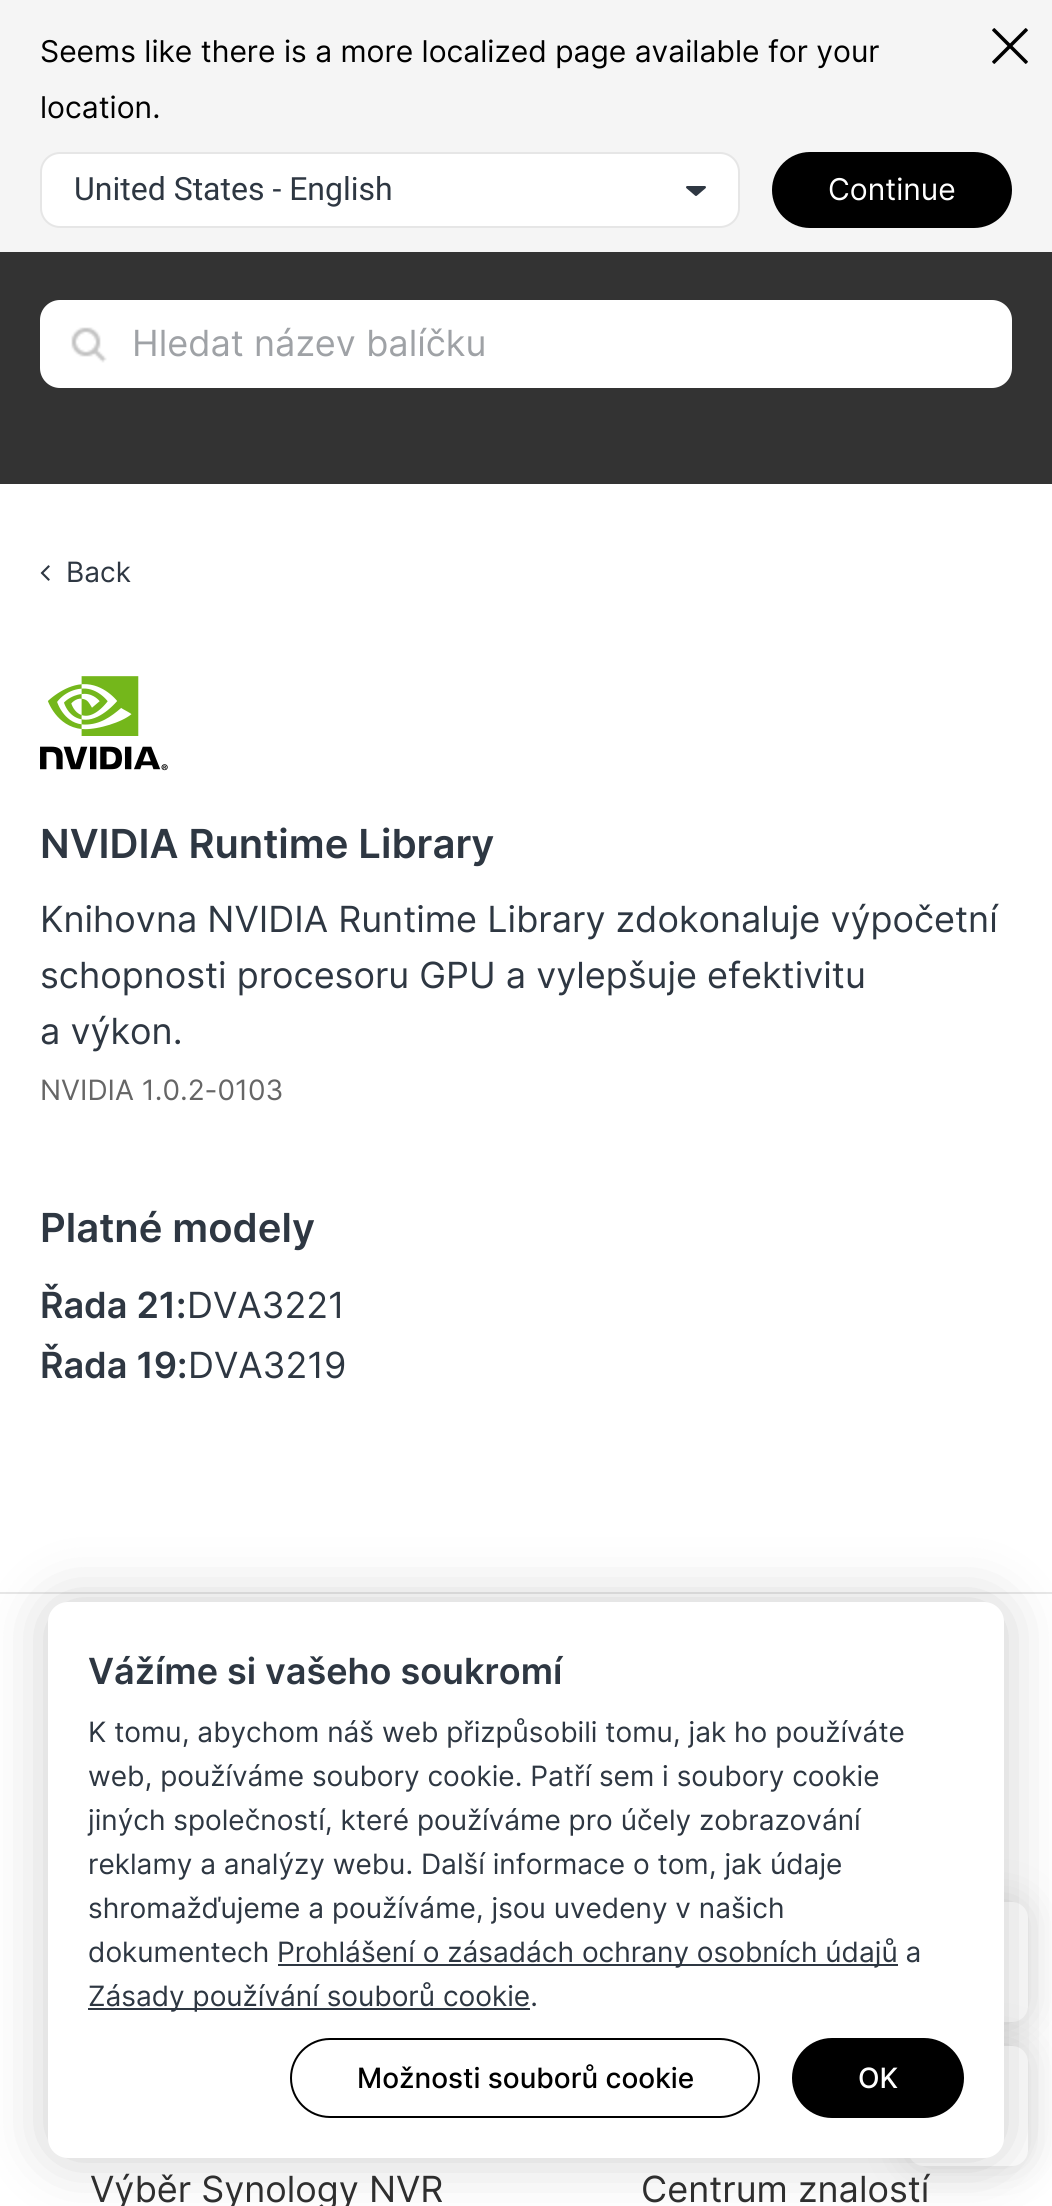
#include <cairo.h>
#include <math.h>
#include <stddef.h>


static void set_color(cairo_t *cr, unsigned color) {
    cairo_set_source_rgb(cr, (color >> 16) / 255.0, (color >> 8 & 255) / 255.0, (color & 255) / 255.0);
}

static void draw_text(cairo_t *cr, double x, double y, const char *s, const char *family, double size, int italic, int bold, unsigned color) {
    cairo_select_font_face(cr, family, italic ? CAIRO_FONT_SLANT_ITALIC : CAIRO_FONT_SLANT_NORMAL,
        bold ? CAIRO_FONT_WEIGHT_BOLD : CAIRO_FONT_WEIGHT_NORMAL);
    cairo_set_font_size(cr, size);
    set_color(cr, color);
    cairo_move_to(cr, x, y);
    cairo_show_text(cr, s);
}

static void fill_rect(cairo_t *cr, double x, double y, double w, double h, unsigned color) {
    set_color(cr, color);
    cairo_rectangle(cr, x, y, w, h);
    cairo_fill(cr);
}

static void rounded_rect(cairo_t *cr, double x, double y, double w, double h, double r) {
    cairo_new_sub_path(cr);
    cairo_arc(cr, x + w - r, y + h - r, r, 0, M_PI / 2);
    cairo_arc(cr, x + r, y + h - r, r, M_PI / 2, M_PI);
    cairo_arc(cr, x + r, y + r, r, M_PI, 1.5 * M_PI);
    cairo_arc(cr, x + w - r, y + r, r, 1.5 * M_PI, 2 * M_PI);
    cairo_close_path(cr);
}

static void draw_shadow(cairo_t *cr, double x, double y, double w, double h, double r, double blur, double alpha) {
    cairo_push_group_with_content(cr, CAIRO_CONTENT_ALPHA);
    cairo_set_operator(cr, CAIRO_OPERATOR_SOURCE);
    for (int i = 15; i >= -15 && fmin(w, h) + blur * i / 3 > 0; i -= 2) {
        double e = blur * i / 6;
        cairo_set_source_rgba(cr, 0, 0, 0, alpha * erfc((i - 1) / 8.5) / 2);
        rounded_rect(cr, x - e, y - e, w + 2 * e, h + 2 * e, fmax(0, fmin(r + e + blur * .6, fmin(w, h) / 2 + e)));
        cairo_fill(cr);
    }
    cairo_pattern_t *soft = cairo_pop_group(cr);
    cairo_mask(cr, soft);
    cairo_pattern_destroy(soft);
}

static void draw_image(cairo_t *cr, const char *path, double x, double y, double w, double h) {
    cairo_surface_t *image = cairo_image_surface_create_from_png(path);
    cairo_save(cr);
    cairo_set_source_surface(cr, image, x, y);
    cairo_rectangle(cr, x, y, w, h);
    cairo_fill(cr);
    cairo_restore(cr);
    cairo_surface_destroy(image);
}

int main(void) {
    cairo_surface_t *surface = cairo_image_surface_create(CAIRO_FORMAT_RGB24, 1052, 2206);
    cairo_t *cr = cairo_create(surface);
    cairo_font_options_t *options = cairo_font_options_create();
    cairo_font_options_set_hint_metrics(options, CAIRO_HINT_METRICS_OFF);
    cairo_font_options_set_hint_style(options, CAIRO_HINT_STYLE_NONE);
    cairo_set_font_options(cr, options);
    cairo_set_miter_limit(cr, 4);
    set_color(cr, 0xFFFFFF);
    cairo_paint(cr);
    fill_rect(cr, 0, 0, 1052, 252, 0xF5F5F5);
    draw_text(cr, 40, 62, "Seems like there is a more localized page available for your", "Inter", 30, 0, 0, 0x000000);
    draw_text(cr, 40, 118, "location.", "Inter", 30, 0, 0, 0x000000);
    cairo_new_path(cr);
    cairo_move_to(cr, 1026.5, 28.5);
    cairo_line_to(cr, 1027.5, 29.5);
    cairo_curve_to(cr, 1028, 30, 1028, 31, 1027.5, 31);
    cairo_line_to(cr, 995, 63.5);
    cairo_curve_to(cr, 995, 64, 994, 64, 993.5, 63.5);
    cairo_line_to(cr, 992.5, 62.5);
    cairo_curve_to(cr, 992, 62, 992, 61, 992.5, 61);
    cairo_line_to(cr, 1025, 28.5);
    cairo_curve_to(cr, 1025, 28, 1026, 28, 1026.5, 28.5);
    cairo_close_path(cr);
    cairo_fill(cr);
    cairo_new_path(cr);
    cairo_move_to(cr, 992.5, 29.5);
    cairo_line_to(cr, 993.5, 28.5);
    cairo_curve_to(cr, 994, 28, 995, 28, 995, 28.5);
    cairo_line_to(cr, 1027.5, 61);
    cairo_curve_to(cr, 1028, 61, 1028, 62, 1027.5, 62.5);
    cairo_line_to(cr, 1026.5, 63.5);
    cairo_curve_to(cr, 1026, 64, 1025, 64, 1025, 63.5);
    cairo_line_to(cr, 992.5, 31);
    cairo_curve_to(cr, 992, 31, 992, 30, 992.5, 29.5);
    cairo_close_path(cr);
    cairo_fill(cr);
    set_color(cr, 0xFFFFFF);
    rounded_rect(cr, 41, 153, 698, 74, 19);
    cairo_fill_preserve(cr);
    set_color(cr, 0xE6E6E6);
    cairo_stroke(cr);
    draw_text(cr, 74, 200, "United States - English", "Roboto", 32, 0, 0, 0x2E3742);
    draw_image(cr, "assets/img1.png", 686, 186, 20, 10);
    set_color(cr, 0x000000);
    rounded_rect(cr, 772, 152, 240, 76, 38);
    cairo_fill(cr);
    draw_text(cr, 828, 200, "Continue", "Inter", 30, 0, 0, 0xFFFFFF);
    fill_rect(cr, 0, 1592, 1052, 2, 0xE7E7E7);
    fill_rect(cr, 0, 252, 1052, 232, 0x333333);
    set_color(cr, 0xFFFFFF);
    rounded_rect(cr, 40, 300, 972, 88, 20);
    cairo_fill(cr);
    draw_image(cr, "assets/img2.png", 71, 327, 36, 36);
    draw_text(cr, 132, 356, "Hledat název balíčku", "Inter", 36, 0, 0, 0x9FA2A6);
    draw_image(cr, "assets/img3.png", 40, 565, 10, 16);
    draw_text(cr, 66, 582, "Back", "Inter", 28, 0, 0, 0x2E3742);
    draw_image(cr, "assets/img4.png", 40, 676, 128, 95);
    draw_text(cr, 40, 858, "NVIDIA Runtime Library", "Inter SemiBold", 40, 0, 0, 0x2E3742);
    draw_text(cr, 40, 932, "Knihovna NVIDIA Runtime Library zdokonaluje výpočetní", "Inter", 36, 0, 0, 0x2E3742);
    draw_text(cr, 40, 988, "schopnosti procesoru GPU a vylepšuje efektivitu", "Inter", 36, 0, 0, 0x2E3742);
    draw_text(cr, 40, 1044, "a výkon.", "Inter", 36, 0, 0, 0x2E3742);
    draw_text(cr, 40, 1100, "NVIDIA 1.0.2-0103", "Inter", 28, 0, 0, 0x666666);
    draw_text(cr, 40, 1242, "Platné modely", "Inter SemiBold", 40, 0, 0, 0x2E3742);
    draw_text(cr, 40, 1318, "Řada 21:", "Inter SemiBold", 36, 0, 0, 0x2E3742);
    draw_text(cr, 187, 1318, "DVA3221", "Inter", 36, 0, 0, 0x2E3742);
    draw_text(cr, 40, 1378, "Řada 19:", "Inter SemiBold", 36, 0, 0, 0x2E3742);
    draw_text(cr, 188, 1378, "DVA3219", "Inter", 36, 0, 0, 0x2E3742);
    draw_text(cr, 90, 2202, "Výběr Synology NVR", "Inter", 36, 0, 0, 0x303030);
    draw_text(cr, 641, 2202, "Centrum znalostí", "Inter", 36, 0, 0, 0x303030);
    set_color(cr, 0x545454);
    draw_shadow(cr, 908, 1902, 120, 120, 16, 20, 0.2);
    set_color(cr, 0xFFFFFF);
    rounded_rect(cr, 908, 1902, 120, 120, 16);
    cairo_fill(cr);
    set_color(cr, 0x545454);
    draw_shadow(cr, 908, 2046, 120, 120, 16, 20, 0.2);
    set_color(cr, 0xFFFFFF);
    rounded_rect(cr, 908, 2046, 120, 120, 16);
    cairo_fill(cr);
    draw_image(cr, "assets/img5.png", 1003, 2138, 1, 4);
    set_color(cr, 0x000000);
    draw_shadow(cr, 48, 1602, 956, 556, 20, 30, 0.2);
    set_color(cr, 0xFFFFFF);
    rounded_rect(cr, 48, 1602, 956, 556, 20);
    cairo_fill(cr);
    draw_text(cr, 88, 1684, "Vážíme si vašeho soukromí", "Inter SemiBold", 36, 0, 0, 0x2E3742);
    draw_text(cr, 88, 1742, "K tomu, abychom náš web přizpůsobili tomu, jak ho používáte", "Inter", 28, 0, 0, 0x2E3742);
    draw_text(cr, 88, 1786, "web, používáme soubory cookie. Patří sem i soubory cookie", "Inter", 28, 0, 0, 0x2E3742);
    draw_text(cr, 88, 1830, "jiných společností, které používáme pro účely zobrazování", "Inter", 28, 0, 0, 0x2E3742);
    draw_text(cr, 88, 1874, "reklamy a analýzy webu. Další informace o tom, jak údaje", "Inter", 28, 0, 0, 0x2E3742);
    draw_text(cr, 88, 1918, "shromažďujeme a používáme, jsou uvedeny v našich", "Inter", 28, 0, 0, 0x2E3742);
    draw_text(cr, 88, 1962, "dokumentech", "Inter", 28, 0, 0, 0x2E3742);
    fill_rect(cr, 278, 1964, 620, 2, 0x2E3742);
    draw_text(cr, 277, 1962, "Prohlášení o zásadách ochrany osobních údajů a", "Inter", 28, 0, 0, 0x2E3742);
    fill_rect(cr, 88, 2008, 442, 2, 0x2E3742);
    draw_text(cr, 88, 2006, "Zásady používání souborů cookie.", "Inter", 28, 0, 0, 0x2E3742);
    rounded_rect(cr, 291, 2039, 468, 78, 39);
    set_color(cr, 0x000000);
    cairo_stroke(cr);
    draw_text(cr, 357, 2088, "Možnosti souborů cookie", "Inter Medium", 28, 0, 0, 0x000000);
    rounded_rect(cr, 793, 2039, 170, 78, 39);
    cairo_fill_preserve(cr);
    cairo_stroke(cr);
    draw_text(cr, 858, 2088, "OK", "Inter Medium", 28, 0, 0, 0xFFFFFF);
    cairo_surface_write_to_png(surface, "output.png");
    cairo_font_options_destroy(options);
    cairo_destroy(cr);
    cairo_surface_destroy(surface);
    return 0;
}
